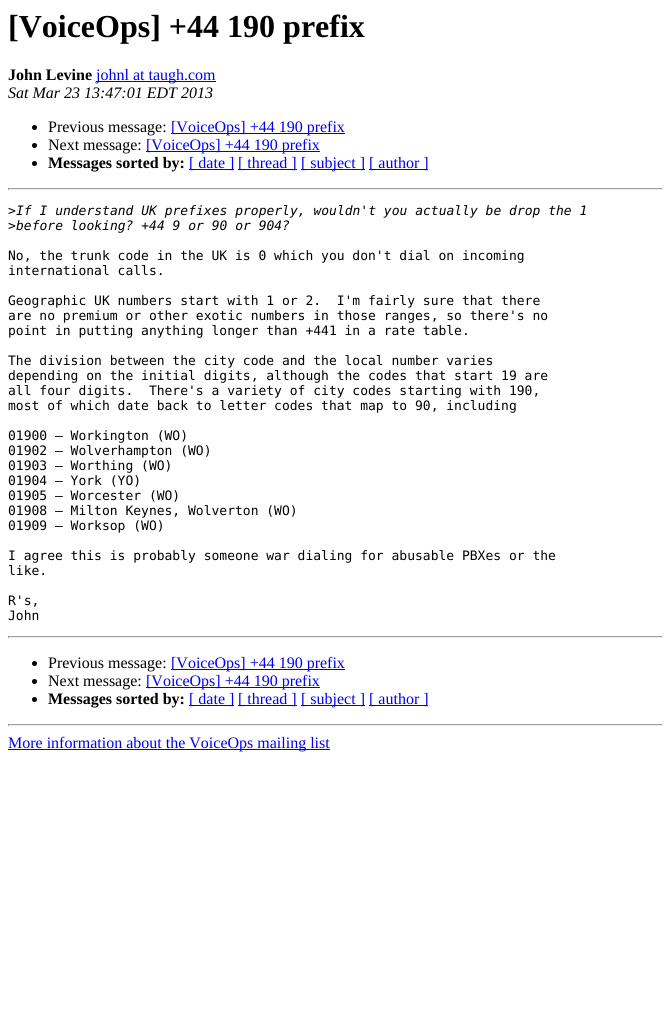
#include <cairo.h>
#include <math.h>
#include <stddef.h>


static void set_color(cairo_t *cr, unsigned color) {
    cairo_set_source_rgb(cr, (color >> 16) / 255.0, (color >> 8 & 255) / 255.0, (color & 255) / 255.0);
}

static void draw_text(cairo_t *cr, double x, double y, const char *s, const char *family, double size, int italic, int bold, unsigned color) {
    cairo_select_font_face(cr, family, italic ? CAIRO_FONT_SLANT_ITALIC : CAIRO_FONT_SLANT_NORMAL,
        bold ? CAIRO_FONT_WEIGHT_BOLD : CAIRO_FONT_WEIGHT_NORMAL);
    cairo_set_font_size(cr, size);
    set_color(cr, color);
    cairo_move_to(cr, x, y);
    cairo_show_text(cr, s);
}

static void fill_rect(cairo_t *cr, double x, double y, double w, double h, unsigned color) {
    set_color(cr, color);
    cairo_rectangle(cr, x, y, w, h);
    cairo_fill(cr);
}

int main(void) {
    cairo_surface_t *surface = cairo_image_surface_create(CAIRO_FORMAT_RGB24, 671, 1018);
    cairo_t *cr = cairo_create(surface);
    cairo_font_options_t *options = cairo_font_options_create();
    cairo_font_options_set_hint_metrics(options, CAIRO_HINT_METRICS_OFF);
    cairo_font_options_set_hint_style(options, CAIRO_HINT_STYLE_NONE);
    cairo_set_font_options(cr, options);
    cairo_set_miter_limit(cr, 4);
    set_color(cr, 0xFFFFFF);
    cairo_paint(cr);
    draw_text(cr, 8, 37, "[VoiceOps] +44 190 prefix", "Liberation Serif", 32, 0, 1, 0x000000);
    draw_text(cr, 8, 80, "John Levine", "Liberation Serif", 16, 0, 1, 0x000000);
    fill_rect(cr, 96, 81, 120, 1, 0x0000EE);
    draw_text(cr, 96, 80, "johnl at taugh.com", "Liberation Serif", 16, 0, 0, 0x0000EE);
    draw_text(cr, 8, 98, "Sat Mar 23 13:47:01 EDT 2013", "Liberation Serif", 16, 1, 0, 0x000000);
    cairo_new_path(cr);
    cairo_arc(cr, 34.5, 127.5, 2.5, 0, 2 * M_PI);
    cairo_fill(cr);
    draw_text(cr, 48, 132, "Previous message:", "Liberation Serif", 16, 0, 0, 0x000000);
    fill_rect(cr, 171, 133, 174, 1, 0x0000EE);
    draw_text(cr, 171, 132, "[VoiceOps] +44 190 prefix", "Liberation Serif", 16, 0, 0, 0x0000EE);
    set_color(cr, 0x000000);
    cairo_new_path(cr);
    cairo_arc(cr, 34.5, 145.5, 2.5, 0, 2 * M_PI);
    cairo_fill(cr);
    draw_text(cr, 48, 150, "Next message:", "Liberation Serif", 16, 0, 0, 0x000000);
    fill_rect(cr, 146, 151, 174, 1, 0x0000EE);
    draw_text(cr, 146, 150, "[VoiceOps] +44 190 prefix", "Liberation Serif", 16, 0, 0, 0x0000EE);
    set_color(cr, 0x000000);
    cairo_new_path(cr);
    cairo_arc(cr, 34.5, 163.5, 2.5, 0, 2 * M_PI);
    cairo_fill(cr);
    draw_text(cr, 48, 168, "Messages sorted by:", "Liberation Serif", 16, 0, 1, 0x000000);
    fill_rect(cr, 189, 169, 45, 1, 0x0000EE);
    draw_text(cr, 189, 168, "[ date ]", "Liberation Serif", 16, 0, 0, 0x0000EE);
    fill_rect(cr, 238, 169, 59, 1, 0x0000EE);
    draw_text(cr, 238, 168, "[ thread ]", "Liberation Serif", 16, 0, 0, 0x0000EE);
    fill_rect(cr, 301, 169, 64, 1, 0x0000EE);
    draw_text(cr, 301, 168, "[ subject ]", "Liberation Serif", 16, 0, 0, 0x0000EE);
    fill_rect(cr, 369, 169, 59, 1, 0x0000EE);
    draw_text(cr, 369, 168, "[ author ]", "Liberation Serif", 16, 0, 0, 0x0000EE);
    fill_rect(cr, 8, 188, 655, 1, 0x9F9F9F);
    fill_rect(cr, 662, 188, 1, 2, 0xEEEEEE);
    fill_rect(cr, 8, 189, 655, 1, 0xEEEEEE);
    fill_rect(cr, 8, 188, 1, 2, 0x9F9F9F);
    draw_text(cr, 8, 215, ">", "DejaVu Sans Mono", 13, 0, 0, 0x000000);
    draw_text(cr, 16, 215, "If I understand UK prefixes properly, wouldn't you actually be drop the 1", "DejaVu Sans Mono", 13, 1, 0, 0x000000);
    draw_text(cr, 8, 230, ">", "DejaVu Sans Mono", 13, 0, 0, 0x000000);
    draw_text(cr, 16, 230, "before looking? +44 9 or 90 or 904?", "DejaVu Sans Mono", 13, 1, 0, 0x000000);
    draw_text(cr, 8, 260, "No, the trunk code in the UK is 0 which you don't dial on incoming", "DejaVu Sans Mono", 13, 0, 0, 0x000000);
    draw_text(cr, 8, 275, "international calls.", "DejaVu Sans Mono", 13, 0, 0, 0x000000);
    draw_text(cr, 8, 305, "Geographic UK numbers start with 1 or 2.  I'm fairly sure that there", "DejaVu Sans Mono", 13, 0, 0, 0x000000);
    draw_text(cr, 8, 320, "are no premium or other exotic numbers in those ranges, so there's no", "DejaVu Sans Mono", 13, 0, 0, 0x000000);
    draw_text(cr, 8, 335, "point in putting anything longer than +441 in a rate table.", "DejaVu Sans Mono", 13, 0, 0, 0x000000);
    draw_text(cr, 8, 365, "The division between the city code and the local number varies", "DejaVu Sans Mono", 13, 0, 0, 0x000000);
    draw_text(cr, 8, 380, "depending on the initial digits, although the codes that start 19 are", "DejaVu Sans Mono", 13, 0, 0, 0x000000);
    draw_text(cr, 8, 395, "all four digits.  There's a variety of city codes starting with 190,", "DejaVu Sans Mono", 13, 0, 0, 0x000000);
    draw_text(cr, 8, 410, "most of which date back to letter codes that map to 90, including", "DejaVu Sans Mono", 13, 0, 0, 0x000000);
    draw_text(cr, 8, 440, "01900 — Workington (WO)", "DejaVu Sans Mono", 13, 0, 0, 0x000000);
    draw_text(cr, 8, 455, "01902 — Wolverhampton (WO)", "DejaVu Sans Mono", 13, 0, 0, 0x000000);
    draw_text(cr, 8, 470, "01903 — Worthing (WO)", "DejaVu Sans Mono", 13, 0, 0, 0x000000);
    draw_text(cr, 8, 485, "01904 — York (YO)", "DejaVu Sans Mono", 13, 0, 0, 0x000000);
    draw_text(cr, 8, 500, "01905 — Worcester (WO)", "DejaVu Sans Mono", 13, 0, 0, 0x000000);
    draw_text(cr, 8, 515, "01908 — Milton Keynes, Wolverton (WO)", "DejaVu Sans Mono", 13, 0, 0, 0x000000);
    draw_text(cr, 8, 530, "01909 — Worksop (WO)", "DejaVu Sans Mono", 13, 0, 0, 0x000000);
    draw_text(cr, 8, 560, "I agree this is probably someone war dialing for abusable PBXes or the", "DejaVu Sans Mono", 13, 0, 0, 0x000000);
    draw_text(cr, 8, 575, "like.", "DejaVu Sans Mono", 13, 0, 0, 0x000000);
    draw_text(cr, 8, 605, "R's,", "DejaVu Sans Mono", 13, 0, 0, 0x000000);
    draw_text(cr, 8, 620, "John", "DejaVu Sans Mono", 13, 0, 0, 0x000000);
    fill_rect(cr, 8, 636, 655, 1, 0x9F9F9F);
    fill_rect(cr, 662, 636, 1, 2, 0xEEEEEE);
    fill_rect(cr, 8, 637, 655, 1, 0xEEEEEE);
    fill_rect(cr, 8, 636, 1, 2, 0x9F9F9F);
    set_color(cr, 0x000000);
    cairo_new_path(cr);
    cairo_arc(cr, 34.5, 663.5, 2.5, 0, 2 * M_PI);
    cairo_fill(cr);
    draw_text(cr, 48, 668, "Previous message:", "Liberation Serif", 16, 0, 0, 0x000000);
    fill_rect(cr, 171, 669, 174, 1, 0x0000EE);
    draw_text(cr, 171, 668, "[VoiceOps] +44 190 prefix", "Liberation Serif", 16, 0, 0, 0x0000EE);
    set_color(cr, 0x000000);
    cairo_new_path(cr);
    cairo_arc(cr, 34.5, 681.5, 2.5, 0, 2 * M_PI);
    cairo_fill(cr);
    draw_text(cr, 48, 686, "Next message:", "Liberation Serif", 16, 0, 0, 0x000000);
    fill_rect(cr, 146, 687, 174, 1, 0x0000EE);
    draw_text(cr, 146, 686, "[VoiceOps] +44 190 prefix", "Liberation Serif", 16, 0, 0, 0x0000EE);
    set_color(cr, 0x000000);
    cairo_new_path(cr);
    cairo_arc(cr, 34.5, 699.5, 2.5, 0, 2 * M_PI);
    cairo_fill(cr);
    draw_text(cr, 48, 704, "Messages sorted by:", "Liberation Serif", 16, 0, 1, 0x000000);
    fill_rect(cr, 189, 705, 45, 1, 0x0000EE);
    draw_text(cr, 189, 704, "[ date ]", "Liberation Serif", 16, 0, 0, 0x0000EE);
    fill_rect(cr, 238, 705, 59, 1, 0x0000EE);
    draw_text(cr, 238, 704, "[ thread ]", "Liberation Serif", 16, 0, 0, 0x0000EE);
    fill_rect(cr, 301, 705, 64, 1, 0x0000EE);
    draw_text(cr, 301, 704, "[ subject ]", "Liberation Serif", 16, 0, 0, 0x0000EE);
    fill_rect(cr, 369, 705, 59, 1, 0x0000EE);
    draw_text(cr, 369, 704, "[ author ]", "Liberation Serif", 16, 0, 0, 0x0000EE);
    fill_rect(cr, 8, 724, 655, 1, 0x9F9F9F);
    fill_rect(cr, 662, 724, 1, 2, 0xEEEEEE);
    fill_rect(cr, 8, 725, 655, 1, 0xEEEEEE);
    fill_rect(cr, 8, 724, 1, 2, 0x9F9F9F);
    fill_rect(cr, 8, 749, 322, 1, 0x0000EE);
    draw_text(cr, 8, 748, "More information about the VoiceOps mailing list", "Liberation Serif", 16, 0, 0, 0x0000EE);
    cairo_surface_write_to_png(surface, "output.png");
    cairo_font_options_destroy(options);
    cairo_destroy(cr);
    cairo_surface_destroy(surface);
    return 0;
}
